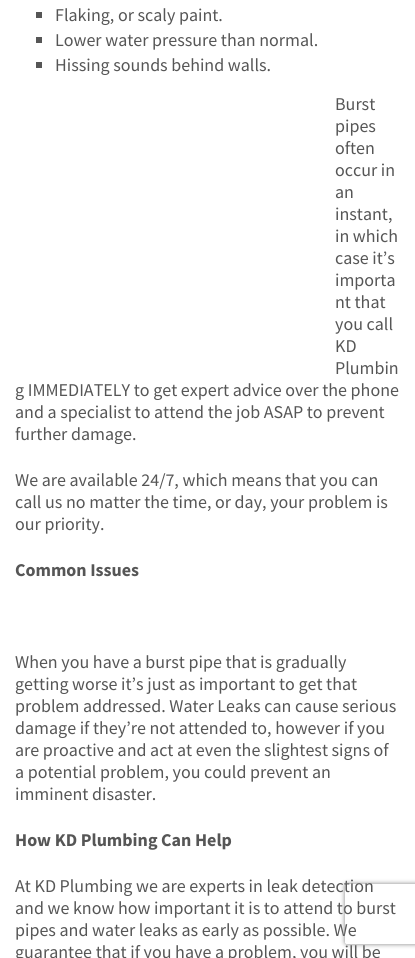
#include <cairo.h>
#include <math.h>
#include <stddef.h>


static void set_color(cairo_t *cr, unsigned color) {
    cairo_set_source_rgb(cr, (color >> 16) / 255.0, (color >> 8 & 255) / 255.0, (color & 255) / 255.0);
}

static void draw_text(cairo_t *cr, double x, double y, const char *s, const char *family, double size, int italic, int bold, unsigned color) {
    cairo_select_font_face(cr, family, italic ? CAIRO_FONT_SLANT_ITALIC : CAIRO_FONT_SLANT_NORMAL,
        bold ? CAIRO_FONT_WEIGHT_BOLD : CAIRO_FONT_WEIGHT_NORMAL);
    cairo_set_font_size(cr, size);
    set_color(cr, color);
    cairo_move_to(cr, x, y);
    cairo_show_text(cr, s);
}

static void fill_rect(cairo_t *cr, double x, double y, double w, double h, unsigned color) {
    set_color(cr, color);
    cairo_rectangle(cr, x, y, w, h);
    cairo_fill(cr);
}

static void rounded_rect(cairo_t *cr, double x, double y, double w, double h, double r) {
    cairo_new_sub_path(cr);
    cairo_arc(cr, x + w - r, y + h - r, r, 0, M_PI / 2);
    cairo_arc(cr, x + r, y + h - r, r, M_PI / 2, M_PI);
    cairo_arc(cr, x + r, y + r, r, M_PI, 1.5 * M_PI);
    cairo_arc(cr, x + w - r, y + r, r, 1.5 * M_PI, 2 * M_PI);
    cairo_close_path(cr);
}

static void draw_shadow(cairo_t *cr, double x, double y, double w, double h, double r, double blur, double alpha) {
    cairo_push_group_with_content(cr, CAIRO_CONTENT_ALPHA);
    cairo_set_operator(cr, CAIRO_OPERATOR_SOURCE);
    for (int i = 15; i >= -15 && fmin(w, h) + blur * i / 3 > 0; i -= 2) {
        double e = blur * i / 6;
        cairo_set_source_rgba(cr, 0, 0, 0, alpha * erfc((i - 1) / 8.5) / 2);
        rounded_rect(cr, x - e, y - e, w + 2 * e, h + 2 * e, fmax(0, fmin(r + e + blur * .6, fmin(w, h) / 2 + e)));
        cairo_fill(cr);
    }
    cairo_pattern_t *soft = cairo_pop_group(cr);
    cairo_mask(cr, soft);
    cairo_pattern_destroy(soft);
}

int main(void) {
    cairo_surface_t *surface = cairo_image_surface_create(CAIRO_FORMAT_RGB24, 415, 958);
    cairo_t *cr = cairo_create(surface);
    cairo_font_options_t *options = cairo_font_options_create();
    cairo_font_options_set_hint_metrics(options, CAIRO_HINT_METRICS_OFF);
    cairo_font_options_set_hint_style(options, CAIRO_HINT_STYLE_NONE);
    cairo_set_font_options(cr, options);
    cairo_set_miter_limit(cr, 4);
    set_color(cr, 0xFFFFFF);
    cairo_paint(cr);
    fill_rect(cr, 36, 12, 6, 6, 0x565656);
    draw_text(cr, 55, 21, "Flaking, or scaly paint.", "Source Sans Pro", 18, 0, 0, 0x565656);
    fill_rect(cr, 36, 37, 6, 6, 0x565656);
    draw_text(cr, 55, 46, "Lower water pressure than normal.", "Source Sans Pro", 18, 0, 0, 0x565656);
    fill_rect(cr, 36, 62, 6, 6, 0x565656);
    draw_text(cr, 55, 71, "Hissing sounds behind walls.", "Source Sans Pro", 18, 0, 0, 0x565656);
    draw_text(cr, 335, 110, "Burst", "Source Sans Pro", 18, 0, 0, 0x565656);
    draw_text(cr, 335, 132, "pipes", "Source Sans Pro", 18, 0, 0, 0x565656);
    draw_text(cr, 335, 154, "often", "Source Sans Pro", 18, 0, 0, 0x565656);
    draw_text(cr, 335, 176, "occur in", "Source Sans Pro", 18, 0, 0, 0x565656);
    draw_text(cr, 335, 198, "an", "Source Sans Pro", 18, 0, 0, 0x565656);
    draw_text(cr, 335, 220, "instant,", "Source Sans Pro", 18, 0, 0, 0x565656);
    draw_text(cr, 335, 242, "in which", "Source Sans Pro", 18, 0, 0, 0x565656);
    draw_text(cr, 335, 264, "case it’s", "Source Sans Pro", 18, 0, 0, 0x565656);
    draw_text(cr, 335, 286, "importa", "Source Sans Pro", 18, 0, 0, 0x565656);
    draw_text(cr, 335, 308, "nt that", "Source Sans Pro", 18, 0, 0, 0x565656);
    draw_text(cr, 335, 330, "you call", "Source Sans Pro", 18, 0, 0, 0x565656);
    draw_text(cr, 335, 352, "KD", "Source Sans Pro", 18, 0, 0, 0x565656);
    draw_text(cr, 335, 374, "Plumbin", "Source Sans Pro", 18, 0, 0, 0x565656);
    draw_text(cr, 15, 396, "g IMMEDIATELY to get expert advice over the phone", "Source Sans Pro", 18, 0, 0, 0x565656);
    draw_text(cr, 15, 418, "and a specialist to attend the job ASAP to prevent", "Source Sans Pro", 18, 0, 0, 0x565656);
    draw_text(cr, 15, 440, "further damage.", "Source Sans Pro", 18, 0, 0, 0x565656);
    draw_text(cr, 15, 486, "We are available 24/7, which means that you can", "Source Sans Pro", 18, 0, 0, 0x565656);
    draw_text(cr, 15, 508, "call us no matter the time, or day, your problem is", "Source Sans Pro", 18, 0, 0, 0x565656);
    draw_text(cr, 15, 530, "our priority.", "Source Sans Pro", 18, 0, 0, 0x565656);
    draw_text(cr, 15, 576, "Common Issues", "Source Sans Pro", 18, 0, 1, 0x565656);
    draw_text(cr, 15, 668, "When you have a burst pipe that is gradually", "Source Sans Pro", 18, 0, 0, 0x565656);
    draw_text(cr, 15, 690, "getting worse it’s just as important to get that", "Source Sans Pro", 18, 0, 0, 0x565656);
    draw_text(cr, 15, 712, "problem addressed. Water Leaks can cause serious", "Source Sans Pro", 18, 0, 0, 0x565656);
    draw_text(cr, 15, 734, "damage if they’re not attended to, however if you", "Source Sans Pro", 18, 0, 0, 0x565656);
    draw_text(cr, 15, 756, "are proactive and act at even the slightest signs of", "Source Sans Pro", 18, 0, 0, 0x565656);
    draw_text(cr, 15, 778, "a potential problem, you could prevent an", "Source Sans Pro", 18, 0, 0, 0x565656);
    draw_text(cr, 15, 800, "imminent disaster.", "Source Sans Pro", 18, 0, 0, 0x565656);
    draw_text(cr, 15, 846, "How KD Plumbing Can Help", "Source Sans Pro", 18, 0, 1, 0x565656);
    draw_text(cr, 15, 892, "At KD Plumbing we are experts in leak detection", "Source Sans Pro", 18, 0, 0, 0x565656);
    draw_text(cr, 15, 914, "and we know how important it is to attend to burst", "Source Sans Pro", 18, 0, 0, 0x565656);
    draw_text(cr, 15, 936, "pipes and water leaks as early as possible. We", "Source Sans Pro", 18, 0, 0, 0x565656);
    draw_text(cr, 15, 958, "guarantee that if you have a problem, you will be", "Source Sans Pro", 18, 0, 0, 0x565656);
    cairo_save(cr);
    cairo_set_fill_rule(cr, CAIRO_FILL_RULE_EVEN_ODD);
    cairo_new_path(cr);
    cairo_move_to(cr, 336, 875);
    cairo_line_to(cr, 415, 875);
    cairo_line_to(cr, 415, 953);
    cairo_line_to(cr, 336, 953);
    cairo_close_path(cr);
    cairo_move_to(cr, 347, 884);
    cairo_line_to(cr, 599, 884);
    cairo_curve_to(cr, 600, 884, 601, 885, 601, 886);
    cairo_line_to(cr, 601, 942);
    cairo_curve_to(cr, 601, 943, 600, 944, 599, 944);
    cairo_line_to(cr, 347, 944);
    cairo_curve_to(cr, 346, 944, 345, 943, 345, 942);
    cairo_line_to(cr, 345, 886);
    cairo_curve_to(cr, 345, 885, 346, 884, 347, 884);
    cairo_close_path(cr);
    cairo_clip(cr);
    set_color(cr, 0x808080);
    draw_shadow(cr, 345, 884, 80, 60, 2, 2.5, 1);
    cairo_restore(cr);
    cairo_surface_write_to_png(surface, "output.png");
    cairo_font_options_destroy(options);
    cairo_destroy(cr);
    cairo_surface_destroy(surface);
    return 0;
}
